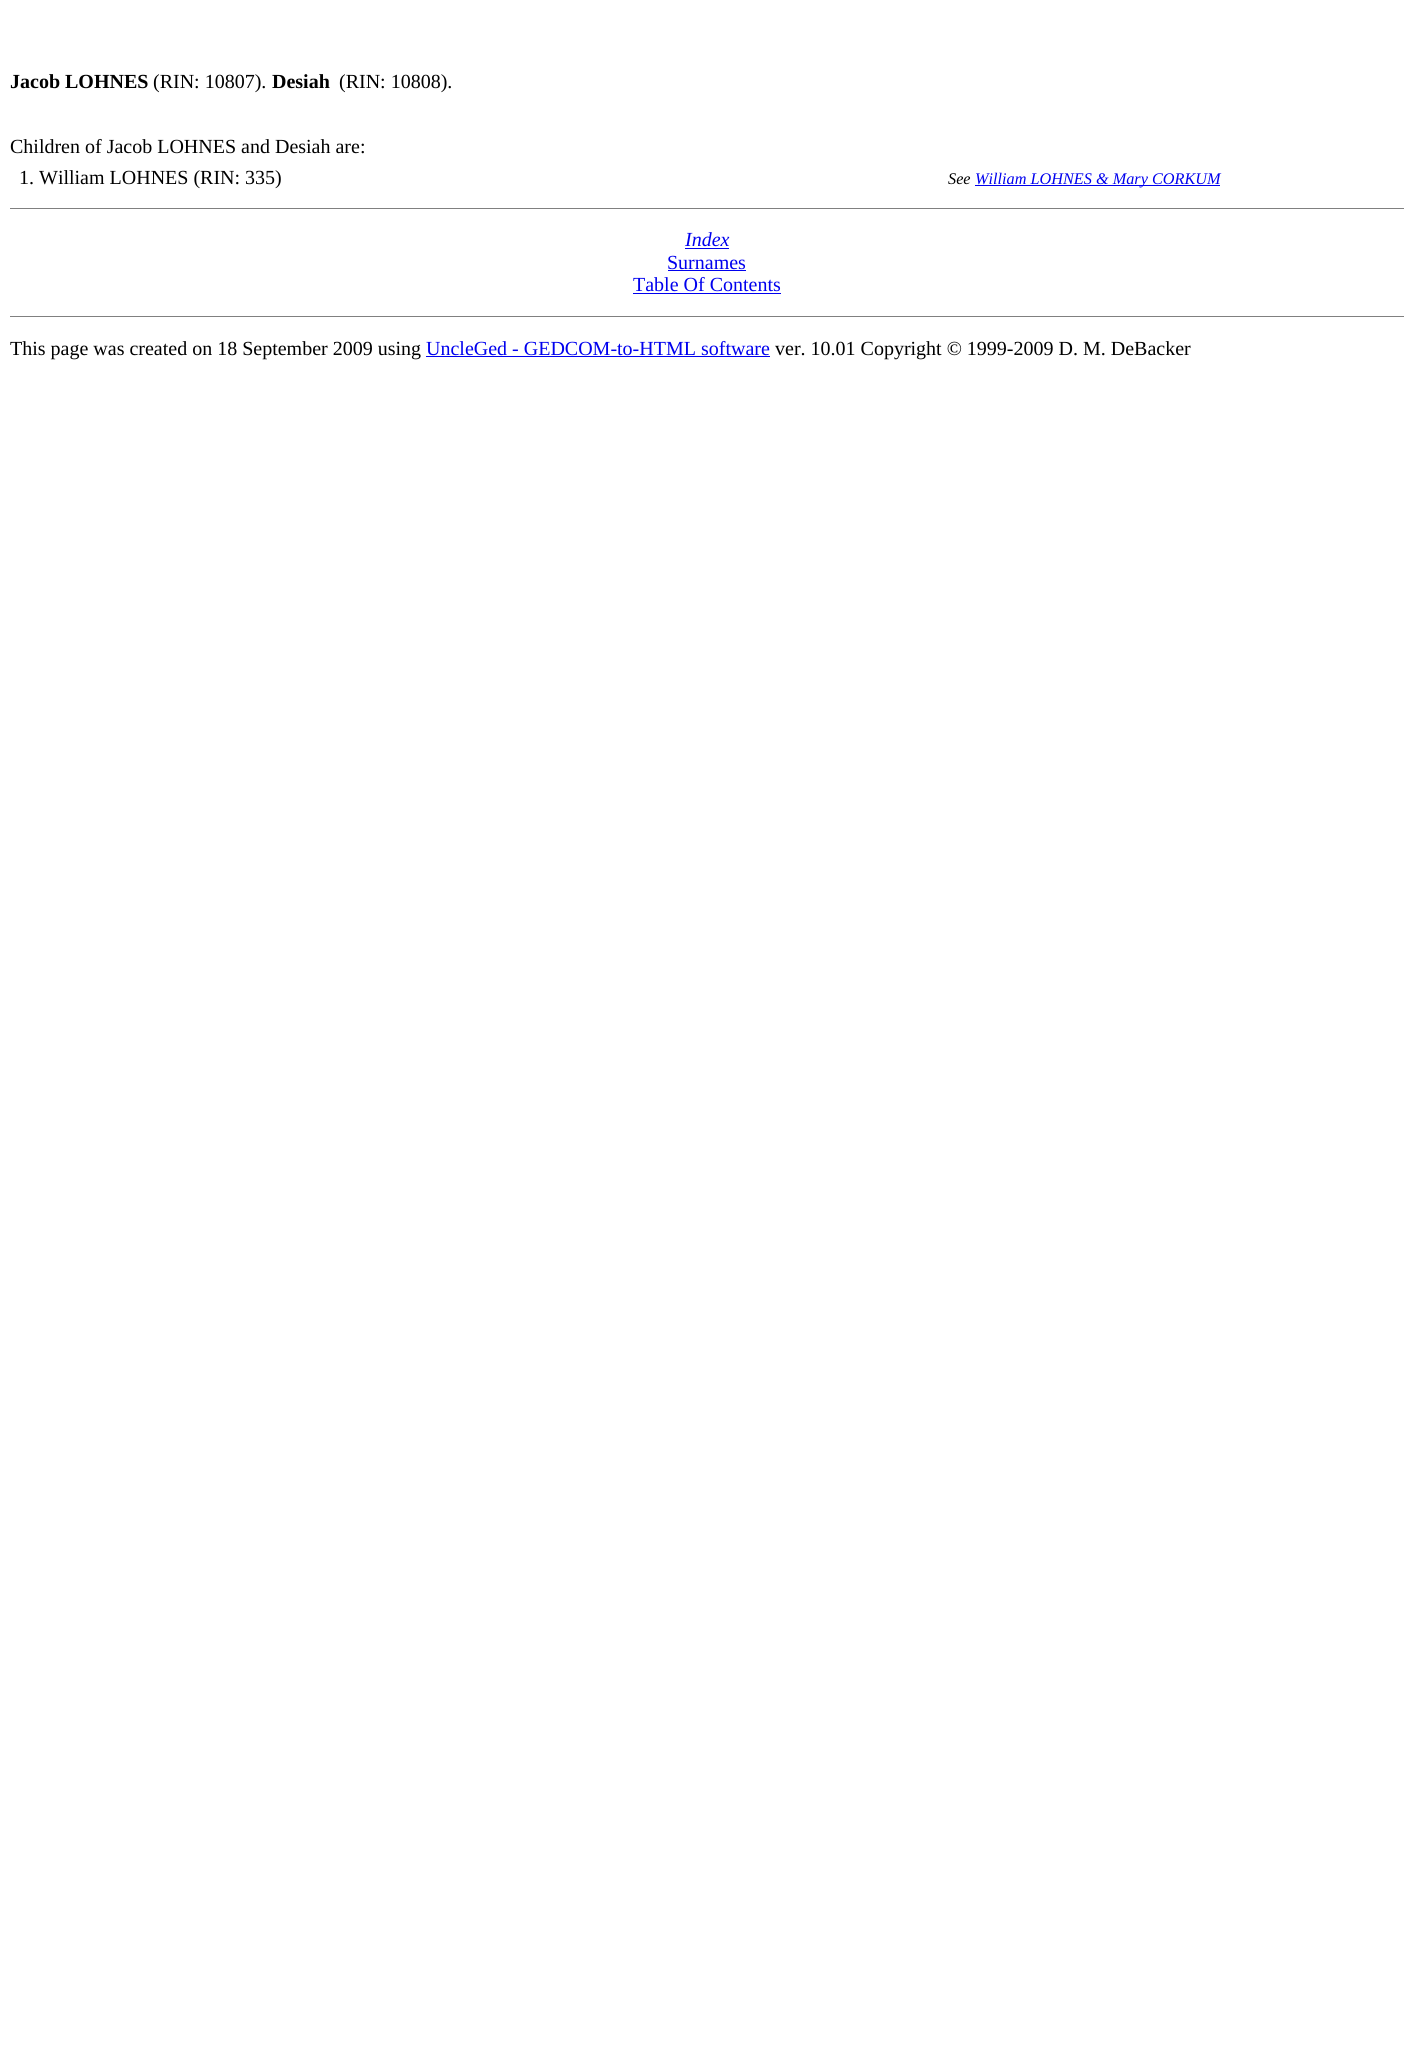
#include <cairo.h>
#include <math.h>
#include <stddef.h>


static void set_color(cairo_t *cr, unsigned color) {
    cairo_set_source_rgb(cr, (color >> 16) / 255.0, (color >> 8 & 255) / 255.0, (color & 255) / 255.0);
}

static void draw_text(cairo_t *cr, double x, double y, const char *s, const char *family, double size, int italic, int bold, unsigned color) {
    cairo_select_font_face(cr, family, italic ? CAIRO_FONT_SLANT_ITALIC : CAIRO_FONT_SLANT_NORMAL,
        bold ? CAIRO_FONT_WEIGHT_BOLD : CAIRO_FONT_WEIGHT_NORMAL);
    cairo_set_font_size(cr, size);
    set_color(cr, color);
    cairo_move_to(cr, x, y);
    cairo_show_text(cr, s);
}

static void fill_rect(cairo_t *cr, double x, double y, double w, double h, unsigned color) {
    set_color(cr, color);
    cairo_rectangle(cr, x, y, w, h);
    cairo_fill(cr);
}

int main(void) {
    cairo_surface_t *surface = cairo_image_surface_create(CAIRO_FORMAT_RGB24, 1413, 2072);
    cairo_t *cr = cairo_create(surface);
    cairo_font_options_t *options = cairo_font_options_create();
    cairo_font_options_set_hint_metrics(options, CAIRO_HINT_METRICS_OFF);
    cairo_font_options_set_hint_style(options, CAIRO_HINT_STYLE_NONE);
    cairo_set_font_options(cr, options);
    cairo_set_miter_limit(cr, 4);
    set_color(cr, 0xFFFFFF);
    cairo_paint(cr);
    draw_text(cr, 10, 88, "Jacob LOHNES", "Liberation Serif", 20, 0, 1, 0x000000);
    draw_text(cr, 153, 88, "(RIN: 10807).", "Liberation Serif", 20, 0, 0, 0x000000);
    draw_text(cr, 272, 88, "Desiah", "Liberation Serif", 20, 0, 1, 0x000000);
    draw_text(cr, 339, 88, "(RIN: 10808).", "Liberation Serif", 20, 0, 0, 0x000000);
    draw_text(cr, 10, 153, "Children of Jacob LOHNES and Desiah are:", "Liberation Serif", 20, 0, 0, 0x000000);
    draw_text(cr, 19, 184, "1. William LOHNES (RIN: 335)", "Liberation Serif", 20, 0, 0, 0x000000);
    draw_text(cr, 948, 184, "See", "Liberation Serif", 16.25, 1, 0, 0x000000);
    fill_rect(cr, 975, 185, 245, 1, 0x0000EE);
    draw_text(cr, 975, 184, "William LOHNES & Mary CORKUM", "Liberation Serif", 16.25, 1, 0, 0x0000EE);
    fill_rect(cr, 10, 208, 1394, 1, 0x808080);
    draw_text(cr, 685, 246, "Index", "Liberation Serif", 20, 1, 0, 0x0000EE);
    fill_rect(cr, 685, 248, 44, 1, 0x0000EE);
    draw_text(cr, 667, 269, "Surnames", "Liberation Serif", 20, 0, 0, 0x0000EE);
    fill_rect(cr, 668, 270, 78, 1, 0x0000EE);
    draw_text(cr, 633, 291, "Table Of Contents", "Liberation Serif", 20, 0, 0, 0x0000EE);
    fill_rect(cr, 633, 293, 148, 1, 0x0000EE);
    fill_rect(cr, 10, 316, 1394, 1, 0x808080);
    draw_text(cr, 10, 355, "This page was created on 18 September 2009 using", "Liberation Serif", 20, 0, 0, 0x000000);
    draw_text(cr, 426, 355, "UncleGed - GEDCOM-to-HTML software", "Liberation Serif", 20, 0, 0, 0x0000EE);
    fill_rect(cr, 426, 356, 344, 1, 0x0000EE);
    draw_text(cr, 775, 355, "ver. 10.01 Copyright © 1999-2009 D. M. DeBacker", "Liberation Serif", 20, 0, 0, 0x000000);
    cairo_surface_write_to_png(surface, "output.png");
    cairo_font_options_destroy(options);
    cairo_destroy(cr);
    cairo_surface_destroy(surface);
    return 0;
}
